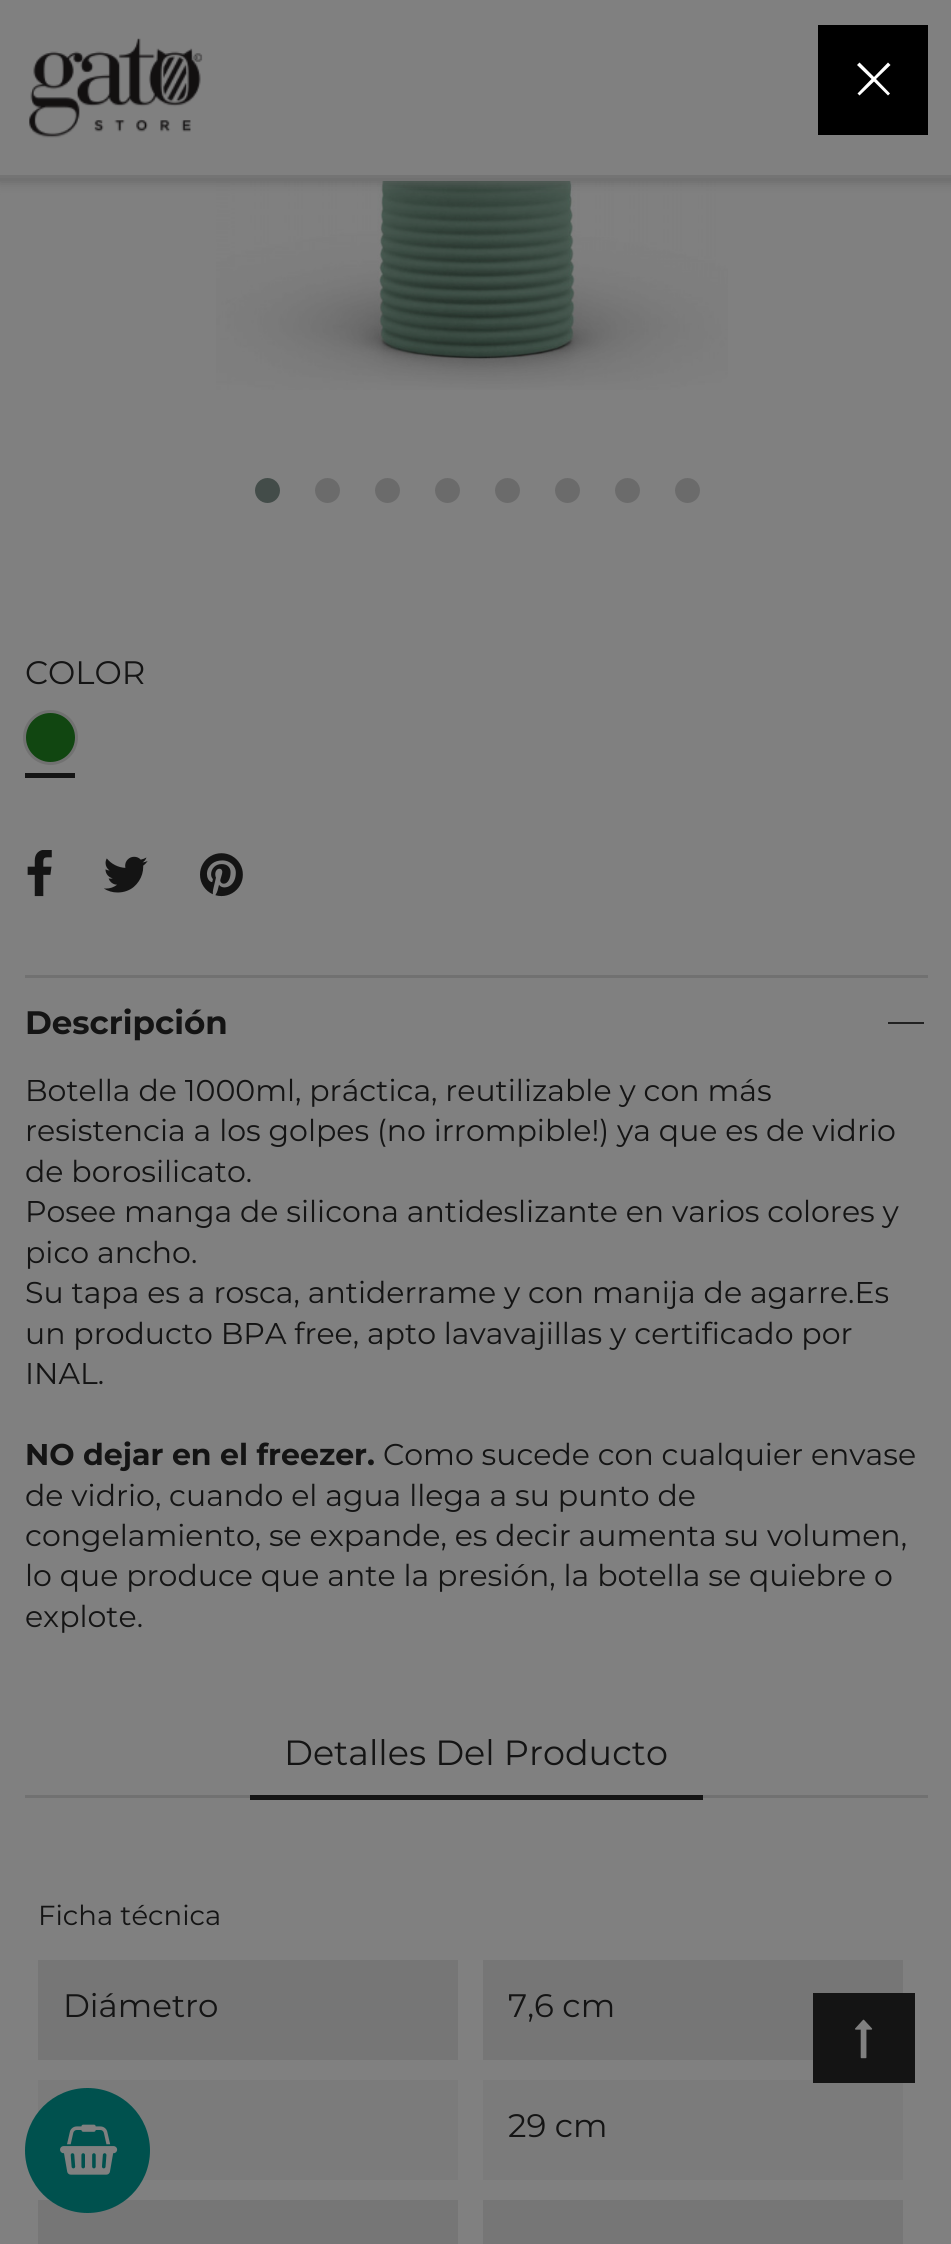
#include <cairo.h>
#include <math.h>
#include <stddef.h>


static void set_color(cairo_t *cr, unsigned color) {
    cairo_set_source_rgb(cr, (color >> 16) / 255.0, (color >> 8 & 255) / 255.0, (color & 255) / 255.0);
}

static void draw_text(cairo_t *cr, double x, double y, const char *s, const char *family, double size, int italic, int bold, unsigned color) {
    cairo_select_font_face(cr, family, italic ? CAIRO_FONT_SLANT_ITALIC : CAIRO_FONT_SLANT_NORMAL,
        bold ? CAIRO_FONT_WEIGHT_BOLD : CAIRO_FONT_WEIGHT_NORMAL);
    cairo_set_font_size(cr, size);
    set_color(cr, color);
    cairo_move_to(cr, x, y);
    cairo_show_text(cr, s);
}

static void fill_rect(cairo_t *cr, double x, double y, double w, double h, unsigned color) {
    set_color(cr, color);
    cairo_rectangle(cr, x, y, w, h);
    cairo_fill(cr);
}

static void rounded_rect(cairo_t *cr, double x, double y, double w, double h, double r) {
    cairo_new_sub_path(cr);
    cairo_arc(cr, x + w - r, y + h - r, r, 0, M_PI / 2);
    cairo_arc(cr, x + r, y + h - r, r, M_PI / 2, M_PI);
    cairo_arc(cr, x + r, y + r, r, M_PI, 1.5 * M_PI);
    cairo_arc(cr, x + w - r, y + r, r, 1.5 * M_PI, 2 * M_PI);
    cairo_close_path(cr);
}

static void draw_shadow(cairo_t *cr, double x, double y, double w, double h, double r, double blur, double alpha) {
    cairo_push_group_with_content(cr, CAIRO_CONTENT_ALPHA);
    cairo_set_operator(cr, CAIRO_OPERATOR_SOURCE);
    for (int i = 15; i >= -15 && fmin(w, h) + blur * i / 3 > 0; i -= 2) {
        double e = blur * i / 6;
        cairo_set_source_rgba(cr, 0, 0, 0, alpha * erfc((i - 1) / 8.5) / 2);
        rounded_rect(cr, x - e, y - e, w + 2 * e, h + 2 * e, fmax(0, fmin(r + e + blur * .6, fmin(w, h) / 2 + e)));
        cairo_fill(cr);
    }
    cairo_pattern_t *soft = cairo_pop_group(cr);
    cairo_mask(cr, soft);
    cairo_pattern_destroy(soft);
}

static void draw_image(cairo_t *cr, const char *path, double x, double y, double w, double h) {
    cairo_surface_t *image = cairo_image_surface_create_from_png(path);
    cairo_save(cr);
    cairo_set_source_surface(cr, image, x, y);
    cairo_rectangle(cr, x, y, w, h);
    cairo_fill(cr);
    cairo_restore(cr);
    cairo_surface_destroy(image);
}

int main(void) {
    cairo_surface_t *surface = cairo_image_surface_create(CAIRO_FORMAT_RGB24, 951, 2244);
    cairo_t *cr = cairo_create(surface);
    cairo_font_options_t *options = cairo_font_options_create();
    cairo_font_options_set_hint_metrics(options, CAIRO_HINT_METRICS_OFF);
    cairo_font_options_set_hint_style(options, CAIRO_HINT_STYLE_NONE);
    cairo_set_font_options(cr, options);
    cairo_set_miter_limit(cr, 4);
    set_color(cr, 0x808080);
    cairo_paint(cr);
    draw_image(cr, "assets/img2.png", 216, 181, 512, 209);
    set_color(cr, 0x5F5F5F);
    draw_shadow(cr, 0, 0, 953, 180, 0, 6, 1);
    fill_rect(cr, 0, 0, 951, 175, 0x808080);
    draw_image(cr, "assets/img1.png", 29, 38, 174, 100);
    fill_rect(cr, 0, 175, 951, 3, 0x747474);
    fill_rect(cr, 0, 178, 951, 3, 0x717171);
    fill_rect(cr, 818, 25, 110, 110, 0x000000);
    set_color(cr, 0xFFFFFF);
    cairo_new_path(cr);
    cairo_move_to(cr, 859.5, 62.5);
    cairo_line_to(cr, 857, 65);
    cairo_line_to(cr, 871.5, 79);
    cairo_line_to(cr, 857.5, 93.5);
    cairo_line_to(cr, 859.5, 95.5);
    cairo_line_to(cr, 874, 81.5);
    cairo_line_to(cr, 888, 95.5);
    cairo_line_to(cr, 890, 93.5);
    cairo_line_to(cr, 876, 79);
    cairo_line_to(cr, 890.5, 65);
    cairo_line_to(cr, 888, 62.5);
    cairo_line_to(cr, 874, 77);
    cairo_close_path(cr);
    cairo_fill(cr);
    set_color(cr, 0x434C49);
    cairo_arc(cr, 267.5, 490.5, 12.5, 0, 2 * M_PI);
    cairo_fill(cr);
    set_color(cr, 0x6B6B6B);
    cairo_arc(cr, 327.5, 490.5, 12.5, 0, 2 * M_PI);
    cairo_fill(cr);
    cairo_arc(cr, 387.5, 490.5, 12.5, 0, 2 * M_PI);
    cairo_fill(cr);
    cairo_arc(cr, 447.5, 490.5, 12.5, 0, 2 * M_PI);
    cairo_fill(cr);
    cairo_arc(cr, 507.5, 490.5, 12.5, 0, 2 * M_PI);
    cairo_fill(cr);
    cairo_arc(cr, 567.5, 490.5, 12.5, 0, 2 * M_PI);
    cairo_fill(cr);
    cairo_arc(cr, 627.5, 490.5, 12.5, 0, 2 * M_PI);
    cairo_fill(cr);
    cairo_arc(cr, 687.5, 490.5, 12.5, 0, 2 * M_PI);
    cairo_fill(cr);
    draw_text(cr, 25, 684, "COLOR", "Montserrat", 32.5, 0, 0, 0x141414);
    set_color(cr, 0x114611);
    cairo_new_path(cr);
    cairo_arc(cr, 50.5, 737.5, 26, 0, 2 * M_PI);
    cairo_fill_preserve(cr);
    set_color(cr, 0x717171);
    cairo_set_line_width(cr, 3);
    cairo_stroke(cr);
    fill_rect(cr, 25, 773, 50, 5, 0x141414);
    draw_image(cr, "assets/img3.png", 27, 850, 25, 47);
    draw_image(cr, "assets/img4.png", 104, 856, 44, 37);
    draw_image(cr, "assets/img5.png", 200, 853, 43, 44);
    fill_rect(cr, 25, 975, 903, 3, 0x717171);
    draw_text(cr, 25, 1034, "Descripción", "Montserrat", 32.5, 0, 1, 0x141414);
    fill_rect(cr, 888, 1022, 36, 2, 0x212121);
    draw_text(cr, 25, 1101, "Botella de 1000ml, práctica, reutilizable y con más", "Montserrat", 30, 0, 0, 0x141414);
    draw_text(cr, 25, 1141, "resistencia a los golpes (no irrompible!) ya que es de vidrio", "Montserrat", 30, 0, 0, 0x141414);
    draw_text(cr, 25, 1182, "de borosilicato.", "Montserrat", 30, 0, 0, 0x141414);
    draw_text(cr, 25, 1222, "Posee manga de silicona antideslizante en varios colores y", "Montserrat", 30, 0, 0, 0x141414);
    draw_text(cr, 25, 1263, "pico ancho.", "Montserrat", 30, 0, 0, 0x141414);
    draw_text(cr, 25, 1303, "Su tapa es a rosca, antiderrame y con manija de agarre.Es", "Montserrat", 30, 0, 0, 0x141414);
    draw_text(cr, 25, 1344, "un producto BPA free, apto lavavajillas y certificado por", "Montserrat", 30, 0, 0, 0x141414);
    draw_text(cr, 25, 1384, "INAL.", "Montserrat", 30, 0, 0, 0x141414);
    draw_text(cr, 25, 1465, "NO dejar en el freezer.", "Montserrat", 30, 0, 1, 0x141414);
    draw_text(cr, 383, 1465, "Como sucede con cualquier envase", "Montserrat", 30, 0, 0, 0x141414);
    draw_text(cr, 25, 1506, "de vidrio, cuando el agua llega a su punto de", "Montserrat", 30, 0, 0, 0x141414);
    draw_text(cr, 25, 1546, "congelamiento, se expande, es decir aumenta su volumen,", "Montserrat", 30, 0, 0, 0x141414);
    draw_text(cr, 25, 1586, "lo que produce que ante la presión, la botella se quiebre o", "Montserrat", 30, 0, 0, 0x141414);
    draw_text(cr, 25, 1627, "explote.", "Montserrat", 30, 0, 0, 0x141414);
    fill_rect(cr, 25, 1795, 903, 3, 0x717171);
    fill_rect(cr, 250, 1795, 453, 5, 0x141414);
    draw_text(cr, 284, 1765, "Detalles Del Producto", "Montserrat", 35, 0, 0, 0x141414);
    draw_text(cr, 38, 1925, "Ficha técnica", "Montserrat", 27.5, 0, 0, 0x141414);
    fill_rect(cr, 38, 1960, 420, 100, 0x767676);
    draw_text(cr, 63, 2017, "Diámetro", "Montserrat", 32.5, 0, 0, 0x141414);
    fill_rect(cr, 483, 1960, 420, 100, 0x767676);
    draw_text(cr, 508, 2017, "7,6 cm", "Montserrat", 32.5, 0, 0, 0x141414);
    fill_rect(cr, 38, 2080, 420, 100, 0x7B7B7B);
    fill_rect(cr, 483, 2080, 420, 100, 0x7B7B7B);
    draw_text(cr, 508, 2137, "29 cm", "Montserrat", 32.5, 0, 0, 0x141414);
    fill_rect(cr, 38, 2200, 420, 44, 0x767676);
    fill_rect(cr, 483, 2200, 420, 44, 0x767676);
    set_color(cr, 0x00514E);
    cairo_new_path(cr);
    cairo_arc(cr, 87.5, 2150.5, 62.5, 0, 2 * M_PI);
    cairo_fill(cr);
    draw_image(cr, "assets/img6.png", 60, 2124, 58, 51);
    fill_rect(cr, 813, 1993, 102, 90, 0x141414);
    draw_image(cr, "assets/img7.png", 855, 2019, 18, 40);
    cairo_surface_write_to_png(surface, "output.png");
    cairo_font_options_destroy(options);
    cairo_destroy(cr);
    cairo_surface_destroy(surface);
    return 0;
}
